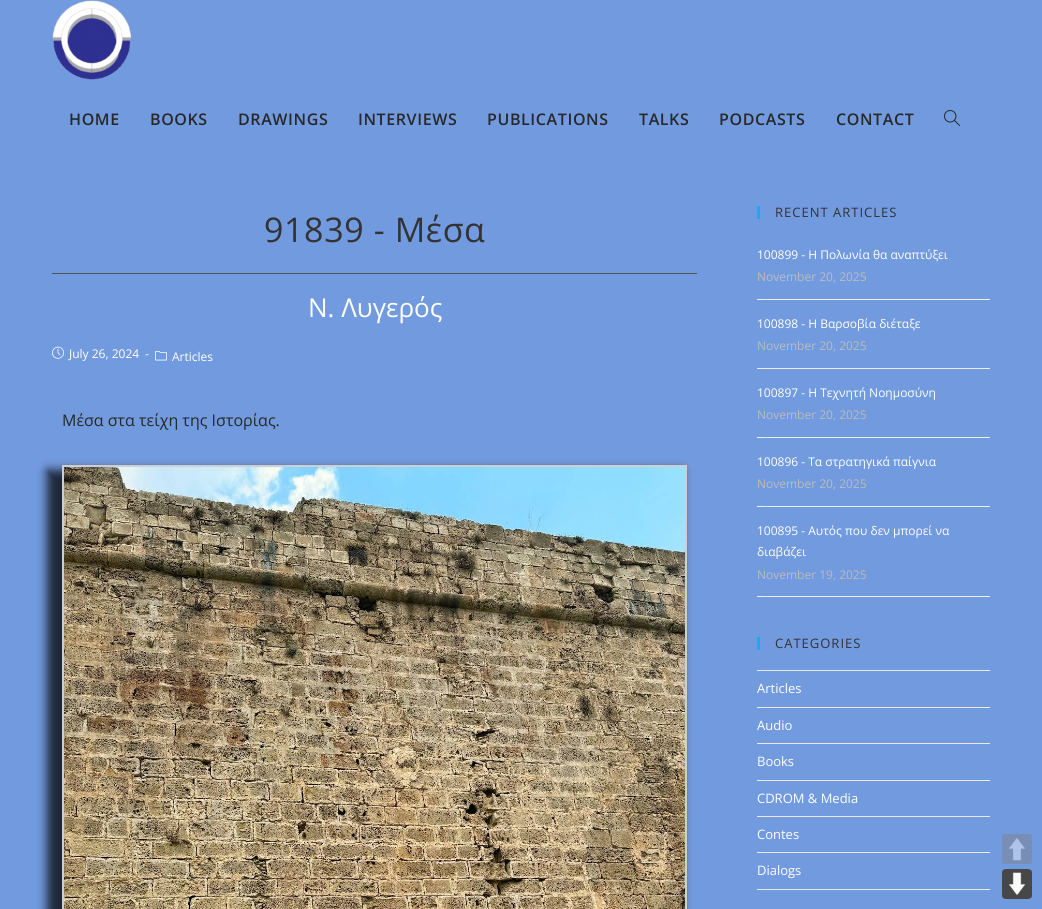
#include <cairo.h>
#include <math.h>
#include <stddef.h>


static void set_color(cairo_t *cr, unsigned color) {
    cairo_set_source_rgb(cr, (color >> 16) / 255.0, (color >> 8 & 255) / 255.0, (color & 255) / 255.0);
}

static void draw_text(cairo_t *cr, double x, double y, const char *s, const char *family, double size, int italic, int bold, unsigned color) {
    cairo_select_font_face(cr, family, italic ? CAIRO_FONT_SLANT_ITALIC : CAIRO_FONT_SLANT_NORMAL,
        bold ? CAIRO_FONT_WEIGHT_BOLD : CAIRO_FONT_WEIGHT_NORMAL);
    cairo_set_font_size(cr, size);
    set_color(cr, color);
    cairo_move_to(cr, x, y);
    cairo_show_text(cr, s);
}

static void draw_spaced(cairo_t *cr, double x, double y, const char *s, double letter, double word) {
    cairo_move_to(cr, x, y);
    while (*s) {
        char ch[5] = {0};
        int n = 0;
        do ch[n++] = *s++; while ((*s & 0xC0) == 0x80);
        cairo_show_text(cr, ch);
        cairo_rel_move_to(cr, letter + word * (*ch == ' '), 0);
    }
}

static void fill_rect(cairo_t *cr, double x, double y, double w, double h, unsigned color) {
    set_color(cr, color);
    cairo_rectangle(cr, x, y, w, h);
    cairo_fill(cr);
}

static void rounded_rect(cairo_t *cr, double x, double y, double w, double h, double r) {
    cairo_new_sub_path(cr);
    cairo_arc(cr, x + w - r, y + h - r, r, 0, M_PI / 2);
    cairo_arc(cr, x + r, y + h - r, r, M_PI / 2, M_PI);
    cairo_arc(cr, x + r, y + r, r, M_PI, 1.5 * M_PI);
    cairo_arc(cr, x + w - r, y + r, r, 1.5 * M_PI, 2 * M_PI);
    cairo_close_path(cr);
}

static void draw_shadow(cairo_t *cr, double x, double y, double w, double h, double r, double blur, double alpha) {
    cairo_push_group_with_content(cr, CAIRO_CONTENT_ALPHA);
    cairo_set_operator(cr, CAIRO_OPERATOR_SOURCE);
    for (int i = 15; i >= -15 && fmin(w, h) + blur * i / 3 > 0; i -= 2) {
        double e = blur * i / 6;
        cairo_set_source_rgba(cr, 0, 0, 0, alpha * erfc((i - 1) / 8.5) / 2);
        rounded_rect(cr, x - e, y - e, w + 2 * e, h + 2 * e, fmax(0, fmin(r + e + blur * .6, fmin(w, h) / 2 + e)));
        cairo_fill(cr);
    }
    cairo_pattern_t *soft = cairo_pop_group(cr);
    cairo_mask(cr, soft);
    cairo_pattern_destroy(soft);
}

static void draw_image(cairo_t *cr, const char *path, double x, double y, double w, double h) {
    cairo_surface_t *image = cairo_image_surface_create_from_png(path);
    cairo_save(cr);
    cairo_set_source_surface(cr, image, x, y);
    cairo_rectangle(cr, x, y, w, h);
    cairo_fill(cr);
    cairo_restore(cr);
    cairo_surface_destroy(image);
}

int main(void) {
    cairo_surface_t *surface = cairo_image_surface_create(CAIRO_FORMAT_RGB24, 1042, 909);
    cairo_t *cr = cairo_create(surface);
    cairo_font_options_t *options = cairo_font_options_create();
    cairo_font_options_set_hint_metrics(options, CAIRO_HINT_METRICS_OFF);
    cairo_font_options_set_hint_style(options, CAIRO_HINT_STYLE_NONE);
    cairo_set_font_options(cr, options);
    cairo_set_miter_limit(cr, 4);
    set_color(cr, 0x729ADF);
    cairo_paint(cr);
    draw_image(cr, "assets/img1.png", 52, 0, 80, 80);
    cairo_select_font_face(cr, "Open Sans SemiBold", CAIRO_FONT_SLANT_NORMAL, CAIRO_FONT_WEIGHT_NORMAL);
    cairo_set_font_size(cr, 16);
    set_color(cr, 0x282828);
    draw_spaced(cr, 69, 125, "HOME", 0.6, 0);
    draw_spaced(cr, 150, 125, "BOOKS", 0.6, 0);
    draw_spaced(cr, 238, 125, "DRAWINGS", 0.6, 0);
    draw_spaced(cr, 358, 125, "INTERVIEWS", 0.6, 0);
    draw_spaced(cr, 487, 125, "PUBLICATIONS", 0.6, 0);
    draw_spaced(cr, 639, 125, "TALKS", 0.6, 0);
    draw_spaced(cr, 719, 125, "PODCASTS", 0.6, 0);
    draw_spaced(cr, 836, 125, "CONTACT", 0.6, 0);
    draw_image(cr, "assets/img2.png", 944, 110, 16, 16);
    fill_rect(cr, 52, 273, 645, 1, 0x545454);
    cairo_select_font_face(cr, "Open Sans", CAIRO_FONT_SLANT_NORMAL, CAIRO_FONT_WEIGHT_NORMAL);
    cairo_set_font_size(cr, 34);
    set_color(cr, 0x333333);
    draw_spaced(cr, 264, 242, "91839 - Μέσα", 0.6, 0);
    draw_text(cr, 308, 317, "Ν. Λυγερός", "Open Sans", 26, 0, 0, 0xFFFFFF);
    draw_image(cr, "assets/img3.png", 52, 346, 12, 13);
    draw_text(cr, 69, 358, "July 26, 2024", "Open Sans", 12, 0, 0, 0xFFFFFF);
    draw_text(cr, 145, 358, "-", "Open Sans", 12, 0, 0, 0xFFFFFF);
    draw_image(cr, "assets/img4.png", 155, 351, 12, 10);
    draw_text(cr, 172, 361, "Articles", "Open Sans", 12, 0, 0, 0xFFFFFF);
    draw_text(cr, 62, 426, "Μέσα στα τείχη της Ιστορίας.", "Open Sans", 16, 0, 0, 0x282828);
    set_color(cr, 0x000000);
    draw_shadow(cr, 47, 470, 635, 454, 0, 5, 0.75);
    cairo_rectangle(cr, 63, 466, 623, 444);
    set_color(cr, 0xCFCFCF);
    cairo_stroke(cr);
    draw_image(cr, "assets/img5.png", 64, 467, 621, 442);
    fill_rect(cr, 757, 206, 3, 13, 0x13AFF0);
    cairo_set_font_size(cr, 13);
    set_color(cr, 0x333333);
    draw_spaced(cr, 775, 217, "RECENT ARTICLES", 1, 0);
    fill_rect(cr, 757, 299, 233, 1, 0xEEEEEE);
    draw_text(cr, 757, 259, "100899 - Η Πολωνία θα αναπτύξει", "Open Sans", 12, 0, 0, 0xFFFFFF);
    draw_text(cr, 757, 281, "November 20, 2025", "Open Sans", 12, 0, 0, 0xBBBBBB);
    fill_rect(cr, 757, 368, 233, 1, 0xEEEEEE);
    draw_text(cr, 757, 328, "100898 - Η Βαρσοβία διέταξε", "Open Sans", 12, 0, 0, 0xFFFFFF);
    draw_text(cr, 757, 350, "November 20, 2025", "Open Sans", 12, 0, 0, 0xBBBBBB);
    fill_rect(cr, 757, 437, 233, 1, 0xEEEEEE);
    draw_text(cr, 757, 397, "100897 - Η Τεχνητή Νοημοσύνη", "Open Sans", 12, 0, 0, 0xFFFFFF);
    draw_text(cr, 757, 419, "November 20, 2025", "Open Sans", 12, 0, 0, 0xBBBBBB);
    fill_rect(cr, 757, 506, 233, 1, 0xEEEEEE);
    draw_text(cr, 757, 466, "100896 - Τα στρατηγικά παίγνια", "Open Sans", 12, 0, 0, 0xFFFFFF);
    draw_text(cr, 757, 488, "November 20, 2025", "Open Sans", 12, 0, 0, 0xBBBBBB);
    fill_rect(cr, 757, 596, 233, 1, 0xEEEEEE);
    draw_text(cr, 757, 535, "100895 - Αυτός που δεν μπορεί να", "Open Sans", 12, 0, 0, 0xFFFFFF);
    draw_text(cr, 757, 556, "διαβάζει", "Open Sans", 12, 0, 0, 0xFFFFFF);
    draw_text(cr, 757, 579, "November 19, 2025", "Open Sans", 12, 0, 0, 0xBBBBBB);
    fill_rect(cr, 757, 637, 3, 13, 0x13AFF0);
    cairo_set_font_size(cr, 13);
    set_color(cr, 0x333333);
    draw_spaced(cr, 775, 648, "CATEGORIES", 1, 0);
    fill_rect(cr, 757, 670, 233, 1, 0xE9E9E9);
    fill_rect(cr, 757, 707, 233, 1, 0xE9E9E9);
    draw_text(cr, 757, 693, "Articles", "Open Sans", 13, 0, 0, 0xFFFFFF);
    fill_rect(cr, 757, 743, 233, 1, 0xE9E9E9);
    draw_text(cr, 757, 730, "Audio", "Open Sans", 13, 0, 0, 0xFFFFFF);
    fill_rect(cr, 757, 780, 233, 1, 0xE9E9E9);
    draw_text(cr, 757, 766, "Books", "Open Sans", 13, 0, 0, 0xFFFFFF);
    fill_rect(cr, 757, 816, 233, 1, 0xE9E9E9);
    draw_text(cr, 757, 803, "CDROM & Media", "Open Sans", 13, 0, 0, 0xFFFFFF);
    fill_rect(cr, 757, 852, 233, 1, 0xE9E9E9);
    draw_text(cr, 757, 839, "Contes", "Open Sans", 13, 0, 0, 0xFFFFFF);
    fill_rect(cr, 757, 889, 233, 1, 0xE9E9E9);
    draw_text(cr, 757, 875, "Dialogs", "Open Sans", 13, 0, 0, 0xFFFFFF);
    set_color(cr, 0x98B4E4);
    rounded_rect(cr, 1002, 834, 30, 30, 4);
    cairo_fill(cr);
    draw_image(cr, "assets/img6.png", 1002, 834, 30, 30);
    set_color(cr, 0xEFEFEF);
    rounded_rect(cr, 1002, 869, 30, 30, 4);
    cairo_fill(cr);
    draw_image(cr, "assets/img7.png", 1002, 869, 30, 30);
    cairo_surface_write_to_png(surface, "output.png");
    cairo_font_options_destroy(options);
    cairo_destroy(cr);
    cairo_surface_destroy(surface);
    return 0;
}
